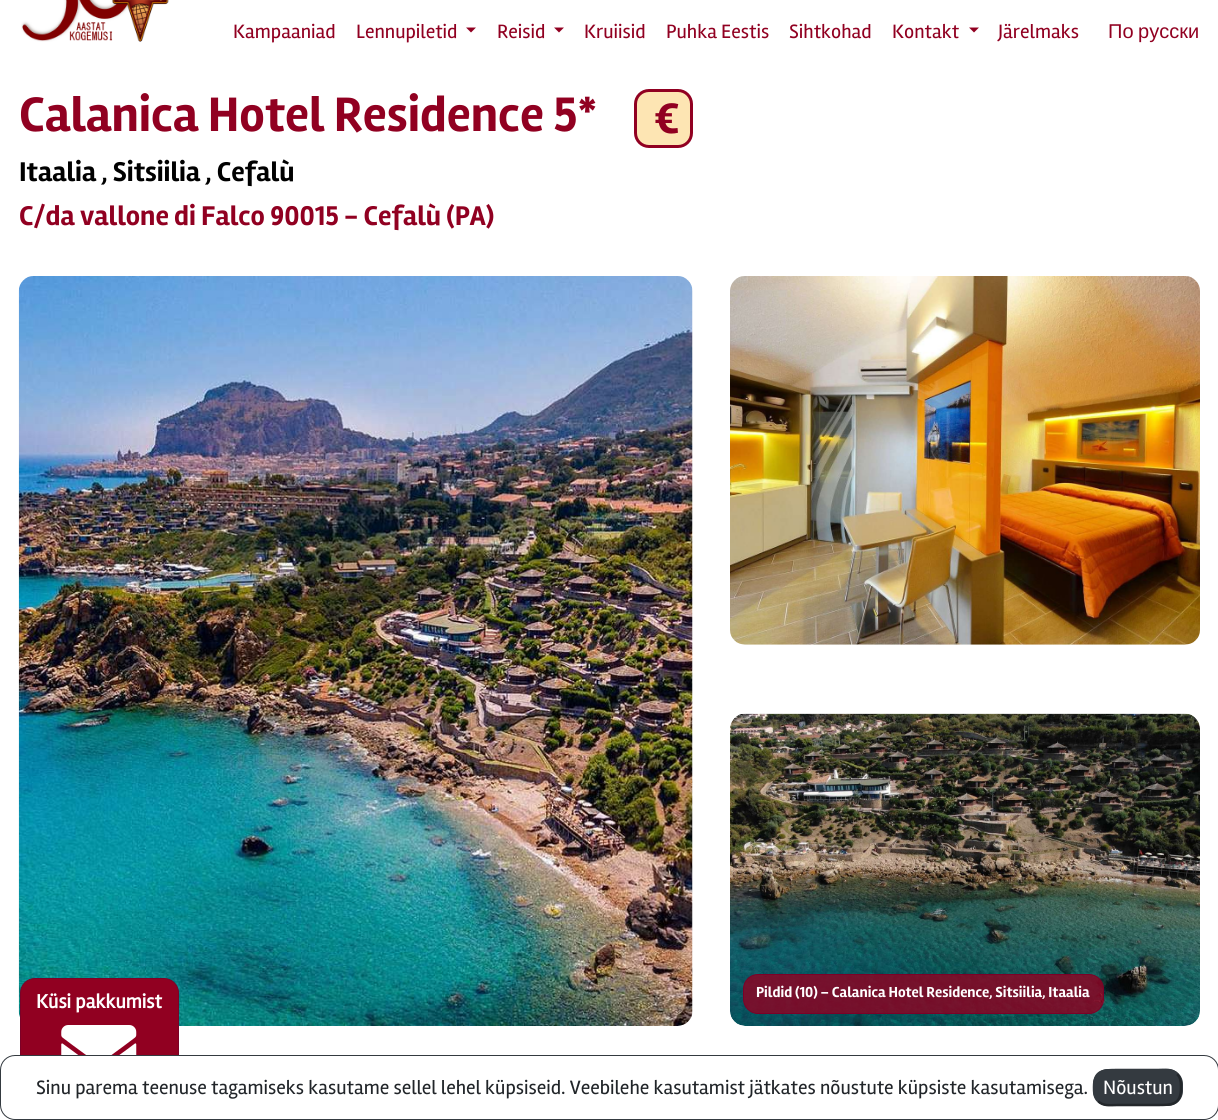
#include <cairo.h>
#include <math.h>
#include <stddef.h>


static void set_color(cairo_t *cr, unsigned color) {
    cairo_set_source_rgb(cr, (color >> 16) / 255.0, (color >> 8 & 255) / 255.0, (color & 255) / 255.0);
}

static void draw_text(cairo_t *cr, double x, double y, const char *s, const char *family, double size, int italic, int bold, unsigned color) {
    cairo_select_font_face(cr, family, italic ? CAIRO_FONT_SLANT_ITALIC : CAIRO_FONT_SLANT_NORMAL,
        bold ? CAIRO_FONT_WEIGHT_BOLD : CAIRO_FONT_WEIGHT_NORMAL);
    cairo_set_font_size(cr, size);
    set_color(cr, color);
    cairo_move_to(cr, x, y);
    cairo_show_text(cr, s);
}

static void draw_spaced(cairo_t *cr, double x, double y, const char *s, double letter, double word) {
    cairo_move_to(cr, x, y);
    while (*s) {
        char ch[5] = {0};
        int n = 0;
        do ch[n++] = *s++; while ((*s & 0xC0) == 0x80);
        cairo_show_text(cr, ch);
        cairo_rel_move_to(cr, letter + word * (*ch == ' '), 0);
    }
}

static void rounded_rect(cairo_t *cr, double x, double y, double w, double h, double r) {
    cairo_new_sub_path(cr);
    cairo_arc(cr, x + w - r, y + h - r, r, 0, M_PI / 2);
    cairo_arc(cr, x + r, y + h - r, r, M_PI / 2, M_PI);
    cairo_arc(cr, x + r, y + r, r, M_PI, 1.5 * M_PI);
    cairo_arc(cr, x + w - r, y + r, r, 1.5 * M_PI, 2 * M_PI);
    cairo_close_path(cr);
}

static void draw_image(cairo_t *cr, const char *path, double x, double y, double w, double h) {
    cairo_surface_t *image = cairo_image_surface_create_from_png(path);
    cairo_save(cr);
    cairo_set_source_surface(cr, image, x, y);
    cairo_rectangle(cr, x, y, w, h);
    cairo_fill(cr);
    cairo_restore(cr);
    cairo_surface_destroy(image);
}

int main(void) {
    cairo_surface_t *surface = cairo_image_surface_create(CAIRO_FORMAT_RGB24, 1218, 1120);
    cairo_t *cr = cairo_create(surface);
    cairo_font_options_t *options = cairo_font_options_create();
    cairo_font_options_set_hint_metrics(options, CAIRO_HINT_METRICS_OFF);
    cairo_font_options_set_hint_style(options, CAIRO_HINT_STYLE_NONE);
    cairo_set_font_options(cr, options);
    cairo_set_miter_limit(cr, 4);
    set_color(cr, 0xFFFFFF);
    cairo_paint(cr);
    draw_image(cr, "assets/img1.png", 21, 0, 148, 42);
    draw_text(cr, 233, 38, "Kampaaniad", "Rambla", 20, 0, 0, 0x910021);
    draw_text(cr, 356, 38, "Lennupiletid", "Rambla", 20, 0, 0, 0x910021);
    cairo_new_path(cr);
    cairo_move_to(cr, 466, 27.5);
    cairo_line_to(cr, 476, 27.5);
    cairo_line_to(cr, 471, 32.5);
    cairo_close_path(cr);
    cairo_fill(cr);
    draw_text(cr, 497, 38, "Reisid", "Rambla", 20, 0, 0, 0x910021);
    cairo_new_path(cr);
    cairo_move_to(cr, 554, 27.5);
    cairo_line_to(cr, 564, 27.5);
    cairo_line_to(cr, 559, 32.5);
    cairo_close_path(cr);
    cairo_fill(cr);
    draw_text(cr, 584, 38, "Kruiisid", "Rambla", 20, 0, 0, 0x910021);
    draw_text(cr, 666, 38, "Puhka Eestis", "Rambla", 20, 0, 0, 0x910021);
    draw_text(cr, 789, 38, "Sihtkohad", "Rambla", 20, 0, 0, 0x910021);
    draw_text(cr, 892, 38, "Kontakt", "Rambla", 20, 0, 0, 0x910021);
    cairo_new_path(cr);
    cairo_move_to(cr, 969, 27.5);
    cairo_line_to(cr, 979, 27.5);
    cairo_line_to(cr, 974, 32.5);
    cairo_close_path(cr);
    cairo_fill(cr);
    draw_text(cr, 998, 38, "Järelmaks", "Rambla", 20, 0, 0, 0x910021);
    cairo_select_font_face(cr, "Liberation Sans", CAIRO_FONT_SLANT_NORMAL, CAIRO_FONT_WEIGHT_NORMAL);
    draw_spaced(cr, 1108, 38, "По русски", 0, -1);
    draw_text(cr, 19, 131, "Calanica Hotel Residence 5*", "Rambla", 50, 0, 1, 0x910021);
    set_color(cr, 0xFDE5B3);
    rounded_rect(cr, 635.5, 90.5, 56, 56, 13.5);
    cairo_fill_preserve(cr);
    set_color(cr, 0x910021);
    cairo_set_line_width(cr, 3);
    cairo_stroke(cr);
    draw_text(cr, 654, 133, "€", "Rambla", 44, 0, 1, 0x910021);
    draw_text(cr, 19, 181, "Itaalia , Sitsiilia , Cefalù", "Rambla", 28, 0, 1, 0x000000);
    draw_text(cr, 19, 225, "C/da vallone di Falco 90015 - Cefalù (PA)", "Rambla", 28, 0, 1, 0x910021);
    draw_image(cr, "assets/img2.png", 18, 276, 675, 750);
    draw_image(cr, "assets/img3.png", 730, 276, 470, 369);
    draw_image(cr, "assets/img4.png", 730, 713, 470, 313);
    cairo_set_source_rgba(cr, 0.569, 0, 0.129, 0.8);
    rounded_rect(cr, 743.5, 974.5, 360, 39, 14.5);
    cairo_fill_preserve(cr);
    set_color(cr, 0x7B0127);
    cairo_set_line_width(cr, 1);
    cairo_stroke(cr);
    draw_text(cr, 756, 997, "Pildid (10) – Calanica Hotel Residence, Sitsiilia, Itaalia", "Rambla", 15, 0, 1, 0xFFFFFF);
    set_color(cr, 0x910021);
    rounded_rect(cr, 20.5, 978.5, 158, 121, 14.5);
    cairo_fill_preserve(cr);
    set_color(cr, 0x7B0127);
    cairo_stroke(cr);
    draw_text(cr, 36, 1008, "Küsi pakkumist", "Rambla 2", 20, 0, 1, 0xFFFFFF);
    draw_image(cr, "assets/img5.png", 61, 1025, 76, 30);
    rounded_rect(cr, 0.5, 1055.5, 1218, 64, 14.5);
    cairo_fill_preserve(cr);
    set_color(cr, 0x343A40);
    cairo_stroke(cr);
    draw_text(cr, 36, 1094, "Sinu parema teenuse tagamiseks kasutame sellel lehel küpsiseid. Veebilehe kasutamist jätkates nõustute küpsiste kasutamisega.", "Rambla", 20, 0, 0, 0x212529);
    set_color(cr, 0x343A40);
    rounded_rect(cr, 1093, 1069, 90, 37, 15);
    cairo_fill(cr);
    cairo_new_path(cr);
    cairo_move_to(cr, 1177, 1074);
    cairo_curve_to(cr, 1181, 1078, 1181, 1083, 1181, 1088);
    cairo_curve_to(cr, 1181, 1105, 1171.5, 1105, 1157.5, 1105);
    cairo_line_to(cr, 1117.5, 1105);
    cairo_curve_to(cr, 1110.5, 1105, 1103, 1106.5, 1098, 1101);
    set_color(cr, 0x23272B);
    cairo_set_line_width(cr, 2.5);
    cairo_stroke(cr);
    cairo_new_path(cr);
    cairo_move_to(cr, 1098, 1101);
    cairo_curve_to(cr, 1094, 1097, 1094, 1092, 1094, 1087);
    cairo_curve_to(cr, 1094, 1070, 1103.5, 1070, 1117.5, 1070);
    cairo_line_to(cr, 1157.5, 1070);
    cairo_curve_to(cr, 1164.5, 1070, 1172, 1068.5, 1177, 1074);
    set_color(cr, 0x343A40);
    cairo_stroke(cr);
    draw_text(cr, 1103, 1094, "Nõustun", "Rambla", 20, 0, 0, 0xFFFFFF);
    cairo_surface_write_to_png(surface, "output.png");
    cairo_font_options_destroy(options);
    cairo_destroy(cr);
    cairo_surface_destroy(surface);
    return 0;
}
